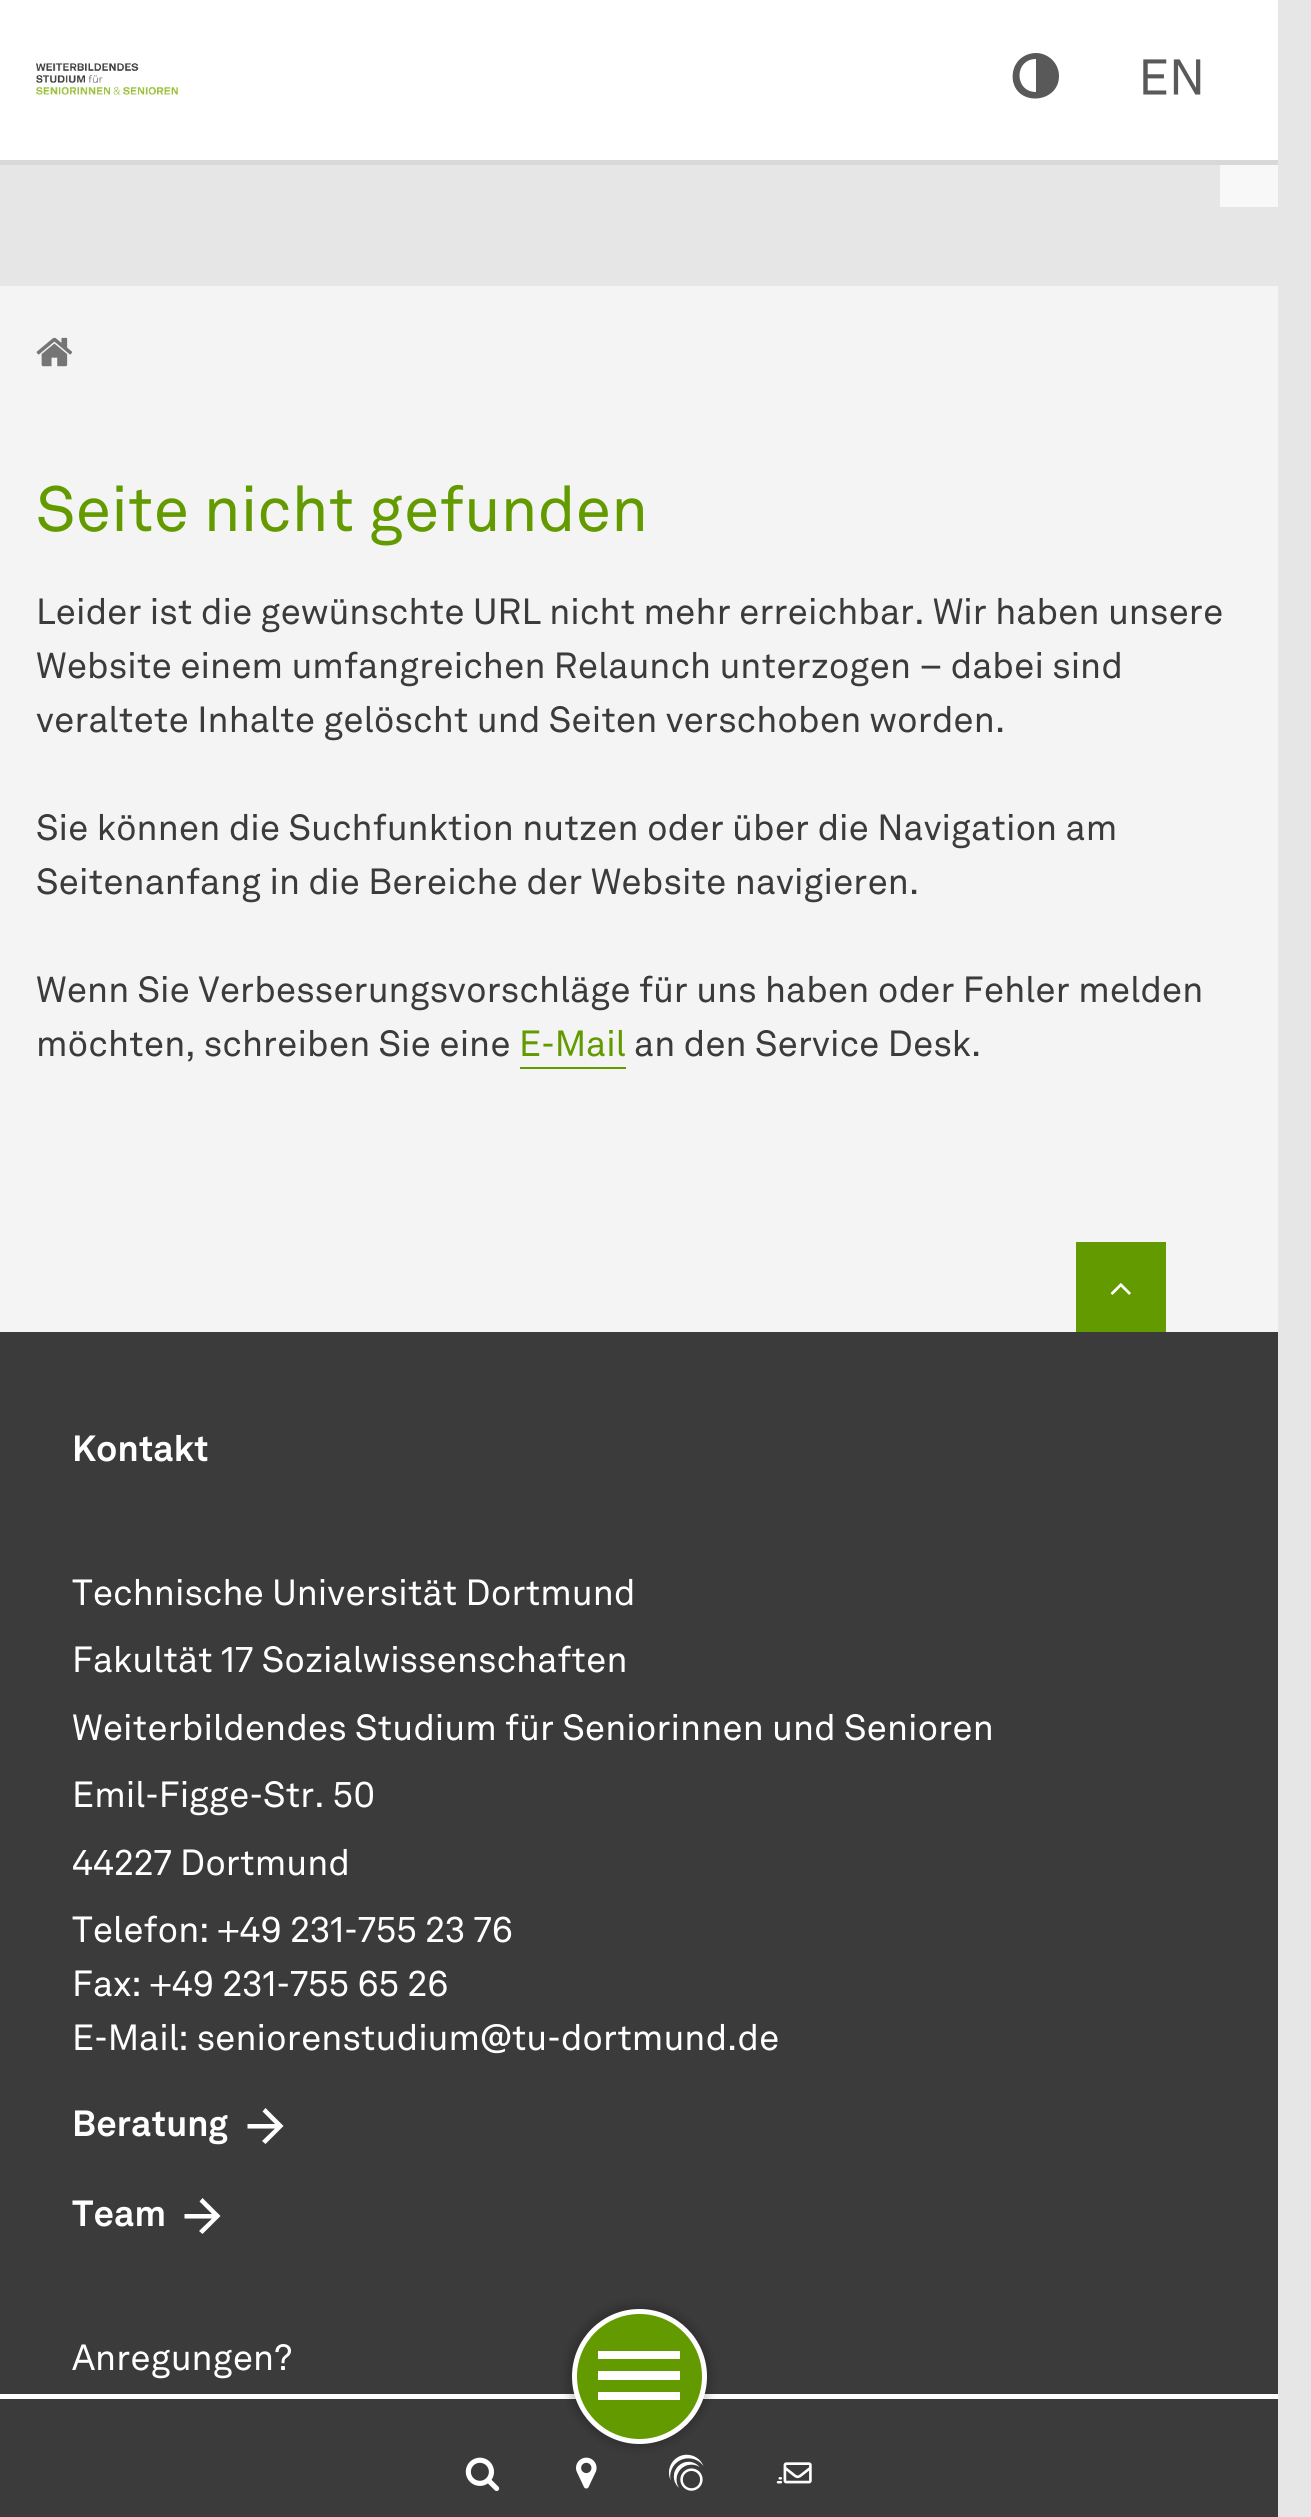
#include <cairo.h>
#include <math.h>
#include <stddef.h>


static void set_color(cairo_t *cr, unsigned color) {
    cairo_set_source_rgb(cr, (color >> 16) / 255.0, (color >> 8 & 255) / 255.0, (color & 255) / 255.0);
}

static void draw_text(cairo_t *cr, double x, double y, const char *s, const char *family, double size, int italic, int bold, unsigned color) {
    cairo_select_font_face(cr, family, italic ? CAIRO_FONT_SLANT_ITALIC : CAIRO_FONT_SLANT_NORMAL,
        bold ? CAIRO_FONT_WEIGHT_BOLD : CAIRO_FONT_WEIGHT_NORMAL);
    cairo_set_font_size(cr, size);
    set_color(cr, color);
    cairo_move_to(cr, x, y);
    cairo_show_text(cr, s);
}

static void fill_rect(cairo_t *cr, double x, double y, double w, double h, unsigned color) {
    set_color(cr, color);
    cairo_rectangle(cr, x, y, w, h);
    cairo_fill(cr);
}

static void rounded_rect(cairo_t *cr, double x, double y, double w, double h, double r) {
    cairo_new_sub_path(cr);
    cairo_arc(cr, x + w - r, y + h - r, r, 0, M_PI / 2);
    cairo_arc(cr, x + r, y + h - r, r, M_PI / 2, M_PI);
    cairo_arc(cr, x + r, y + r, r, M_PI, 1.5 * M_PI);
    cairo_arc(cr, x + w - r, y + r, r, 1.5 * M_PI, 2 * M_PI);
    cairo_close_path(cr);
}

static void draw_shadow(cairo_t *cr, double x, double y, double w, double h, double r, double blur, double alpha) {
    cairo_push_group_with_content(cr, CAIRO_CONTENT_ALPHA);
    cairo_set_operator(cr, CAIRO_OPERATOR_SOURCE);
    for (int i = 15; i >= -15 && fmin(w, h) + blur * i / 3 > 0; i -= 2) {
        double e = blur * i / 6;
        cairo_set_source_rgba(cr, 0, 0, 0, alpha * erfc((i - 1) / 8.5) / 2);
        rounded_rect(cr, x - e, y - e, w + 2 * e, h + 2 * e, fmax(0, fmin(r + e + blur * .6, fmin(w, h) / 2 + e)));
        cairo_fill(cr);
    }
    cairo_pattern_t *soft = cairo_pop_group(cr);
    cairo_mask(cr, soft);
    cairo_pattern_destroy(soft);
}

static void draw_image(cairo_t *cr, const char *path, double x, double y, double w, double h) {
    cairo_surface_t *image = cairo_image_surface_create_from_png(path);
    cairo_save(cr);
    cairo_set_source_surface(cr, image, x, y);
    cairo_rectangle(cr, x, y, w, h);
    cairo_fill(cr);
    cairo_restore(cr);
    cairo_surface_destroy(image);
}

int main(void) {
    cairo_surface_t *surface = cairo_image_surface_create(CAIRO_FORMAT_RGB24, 1311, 2517);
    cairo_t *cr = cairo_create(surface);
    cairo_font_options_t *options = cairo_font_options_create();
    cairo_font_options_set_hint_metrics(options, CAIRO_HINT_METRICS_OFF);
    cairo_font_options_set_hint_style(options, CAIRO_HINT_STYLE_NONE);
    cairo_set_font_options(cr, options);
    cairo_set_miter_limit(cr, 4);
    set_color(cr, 0xE6E6E6);
    cairo_paint(cr);
    fill_rect(cr, 0, 0, 1278, 160, 0xFFFFFF);
    fill_rect(cr, 0, 160, 1278, 5, 0xD8D8D8);
    draw_image(cr, "assets/img1.png", 36, 63, 142, 32);
    set_color(cr, 0x595959);
    cairo_new_path(cr);
    cairo_move_to(cr, 1036, 92);
    cairo_line_to(cr, 1036, 59);
    cairo_curve_to(cr, 1014, 59, 1014, 92, 1036, 92);
    cairo_close_path(cr);
    cairo_move_to(cr, 1059, 76);
    cairo_curve_to(cr, 1059, 103, 1018, 107, 1013, 81);
    cairo_curve_to(cr, 1012, 75, 1013, 69, 1016, 64);
    cairo_curve_to(cr, 1020, 57, 1028, 53, 1036, 53);
    cairo_curve_to(cr, 1048, 53, 1059, 63, 1059, 76);
    cairo_close_path(cr);
    cairo_fill(cr);
    draw_image(cr, "assets/img2.png", 1143, 59, 58, 36);
    fill_rect(cr, 1220, 165, 58, 42, 0xF8F8F8);
    fill_rect(cr, 0, 286, 1278, 1046, 0xF4F4F4);
    draw_image(cr, "assets/img3.png", 36, 337, 37, 30);
    draw_text(cr, 36, 531, "Seite nicht gefunden", "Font", 63, 0, 0, 0x639A00);
    draw_text(cr, 36, 624, "Leider ist die gewünschte URL nicht mehr erreichbar. Wir haben unsere", "Font", 36, 0, 0, 0x3B3B3B);
    draw_text(cr, 36, 678, "Website einem umfangreichen Relaunch unterzogen – dabei sind", "Font", 36, 0, 0, 0x3B3B3B);
    draw_text(cr, 36, 732, "veraltete Inhalte gelöscht und Seiten verschoben worden.", "Font", 36, 0, 0, 0x3B3B3B);
    draw_text(cr, 36, 840, "Sie können die Suchfunktion nutzen oder über die Navigation am", "Font", 36, 0, 0, 0x3B3B3B);
    draw_text(cr, 36, 894, "Seitenanfang in die Bereiche der Website navigieren.", "Font", 36, 0, 0, 0x3B3B3B);
    draw_text(cr, 36, 1002, "Wenn Sie Verbesserungsvorschläge für uns haben oder Fehler melden", "Font", 36, 0, 0, 0x3B3B3B);
    draw_text(cr, 36, 1056, "möchten, schreiben Sie eine", "Font", 36, 0, 0, 0x3B3B3B);
    draw_text(cr, 519, 1056, "E-Mail", "Font", 36, 0, 0, 0x639A00);
    fill_rect(cr, 520, 1067, 106, 2, 0x639A00);
    draw_text(cr, 634, 1056, "an den Service Desk.", "Font", 36, 0, 0, 0x3B3B3B);
    fill_rect(cr, 1076, 1242, 90, 90, 0x639A00);
    draw_image(cr, "assets/img4.png", 1110, 1283, 21, 12);
    fill_rect(cr, 0, 1332, 1278, 1062, 0x3B3B3B);
    draw_text(cr, 72, 1461, "Kontakt", "Font", 36, 0, 1, 0xFFFFFF);
    draw_text(cr, 72, 1605, "Technische Universität Dortmund", "Font", 36, 0, 0, 0xFFFFFF);
    draw_text(cr, 72, 1672, "Fakultät 17 Sozialwissenschaften", "Font", 36, 0, 0, 0xFFFFFF);
    draw_text(cr, 72, 1740, "Weiterbildendes Studium für Seniorinnen und Senioren", "Font", 36, 0, 0, 0xFFFFFF);
    draw_text(cr, 72, 1807, "Emil-Figge-Str. 50", "Font", 36, 0, 0, 0xFFFFFF);
    draw_text(cr, 72, 1875, "44227 Dortmund", "Font", 36, 0, 0, 0xFFFFFF);
    draw_text(cr, 72, 1942, "Telefon: +49 231-755 23 76", "Font", 36, 0, 0, 0xFFFFFF);
    draw_text(cr, 72, 1996, "Fax: +49 231-755 65 26", "Font", 36, 0, 0, 0xFFFFFF);
    draw_text(cr, 72, 2050, "E-Mail: seniorenstudium@tu-dortmund.de", "Font", 36, 0, 0, 0xFFFFFF);
    draw_text(cr, 72, 2136, "Beratung", "Font", 36, 0, 1, 0xFFFFFF);
    cairo_new_path(cr);
    cairo_move_to(cr, 247.5, 2128.5);
    cairo_line_to(cr, 247.5, 2124);
    cairo_line_to(cr, 275, 2124);
    cairo_line_to(cr, 262.5, 2111.5);
    cairo_line_to(cr, 265.5, 2108);
    cairo_line_to(cr, 283.5, 2126);
    cairo_line_to(cr, 265.5, 2144);
    cairo_line_to(cr, 262, 2141);
    cairo_line_to(cr, 275, 2128.5);
    cairo_close_path(cr);
    cairo_fill(cr);
    draw_text(cr, 72, 2226, "Team", "Font", 36, 0, 1, 0xFFFFFF);
    cairo_new_path(cr);
    cairo_move_to(cr, 184.5, 2218.5);
    cairo_line_to(cr, 184.5, 2214);
    cairo_line_to(cr, 212, 2214);
    cairo_line_to(cr, 199.5, 2201.5);
    cairo_line_to(cr, 202.5, 2198);
    cairo_line_to(cr, 220.5, 2216);
    cairo_line_to(cr, 202.5, 2234);
    cairo_line_to(cr, 199, 2231);
    cairo_line_to(cr, 212, 2218.5);
    cairo_close_path(cr);
    cairo_fill(cr);
    draw_text(cr, 72, 2370, "Anregungen?", "Font", 36, 0, 0, 0xFFFFFF);
    fill_rect(cr, 0, 2399, 1278, 118, 0x3B3B3B);
    fill_rect(cr, 0, 2394, 1278, 5, 0xFFFFFF);
    draw_image(cr, "assets/img6.png", 576, 2457, 21, 32);
    draw_image(cr, "assets/img7.png", 668, 2454, 36, 37);
    set_color(cr, 0x000000);
    draw_shadow(cr, 567, 2304, 144, 144, 72, 4.5, 0.2);
    set_color(cr, 0x639A00);
    cairo_arc(cr, 639.5, 2376.5, 65, 0, 2 * M_PI);
    cairo_fill_preserve(cr);
    set_color(cr, 0xFFFFFF);
    cairo_set_line_width(cr, 5);
    cairo_stroke(cr);
    cairo_new_path(cr);
    cairo_move_to(cr, 598, 2351);
    cairo_line_to(cr, 680, 2351);
    cairo_line_to(cr, 680, 2359);
    cairo_line_to(cr, 598, 2359);
    cairo_close_path(cr);
    cairo_move_to(cr, 598, 2371);
    cairo_line_to(cr, 680, 2371);
    cairo_line_to(cr, 680, 2380);
    cairo_line_to(cr, 598, 2380);
    cairo_close_path(cr);
    cairo_move_to(cr, 598, 2392);
    cairo_line_to(cr, 680, 2392);
    cairo_line_to(cr, 680, 2400);
    cairo_line_to(cr, 598, 2400);
    cairo_close_path(cr);
    cairo_fill(cr);
    draw_image(cr, "assets/img5.png", 465, 2457, 35, 35);
    draw_image(cr, "assets/img8.png", 776, 2462, 36, 22);
    cairo_surface_write_to_png(surface, "output.png");
    cairo_font_options_destroy(options);
    cairo_destroy(cr);
    cairo_surface_destroy(surface);
    return 0;
}
